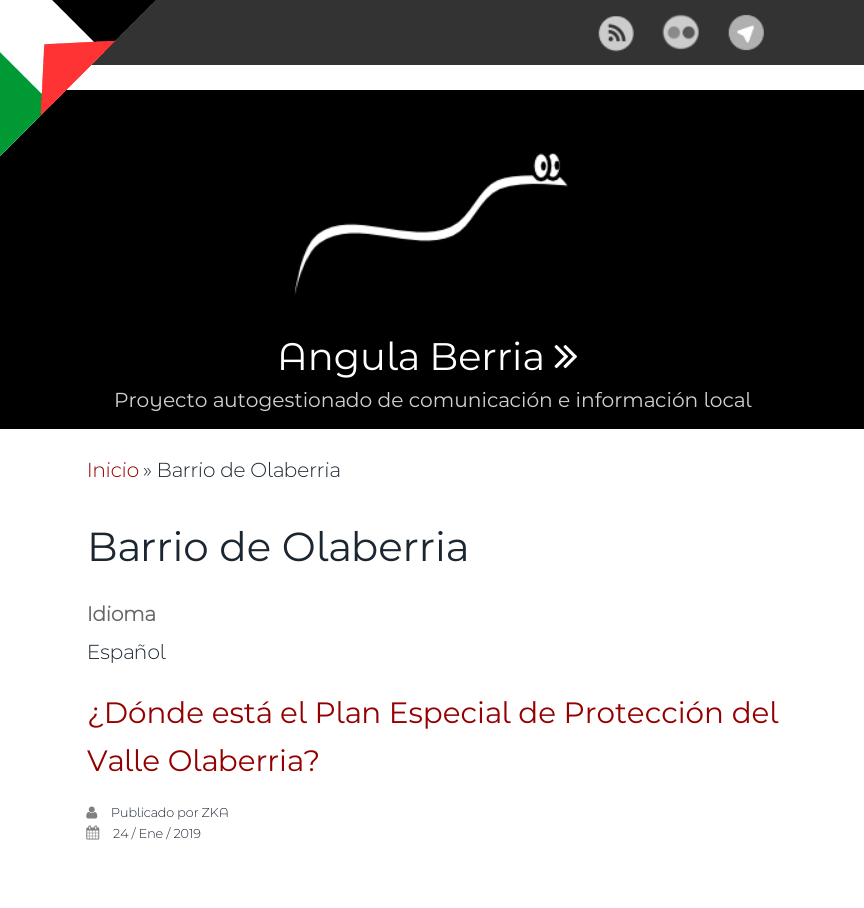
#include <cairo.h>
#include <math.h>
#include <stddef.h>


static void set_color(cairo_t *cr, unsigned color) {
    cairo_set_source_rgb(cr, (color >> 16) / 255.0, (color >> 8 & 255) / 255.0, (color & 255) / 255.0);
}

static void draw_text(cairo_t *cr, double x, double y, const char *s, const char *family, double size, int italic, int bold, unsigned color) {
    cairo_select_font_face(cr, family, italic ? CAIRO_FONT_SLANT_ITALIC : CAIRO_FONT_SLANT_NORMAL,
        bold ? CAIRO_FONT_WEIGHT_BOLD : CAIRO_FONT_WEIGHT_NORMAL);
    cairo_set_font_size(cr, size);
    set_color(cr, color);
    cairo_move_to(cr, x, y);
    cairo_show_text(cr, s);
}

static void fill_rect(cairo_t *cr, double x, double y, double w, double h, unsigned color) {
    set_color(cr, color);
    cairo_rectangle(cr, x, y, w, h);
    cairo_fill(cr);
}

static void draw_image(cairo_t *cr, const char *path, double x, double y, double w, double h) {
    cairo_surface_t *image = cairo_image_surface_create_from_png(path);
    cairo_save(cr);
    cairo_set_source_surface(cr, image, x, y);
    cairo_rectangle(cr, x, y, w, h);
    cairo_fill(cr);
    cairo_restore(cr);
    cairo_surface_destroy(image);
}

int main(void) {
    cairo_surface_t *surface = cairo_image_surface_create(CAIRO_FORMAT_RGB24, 864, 908);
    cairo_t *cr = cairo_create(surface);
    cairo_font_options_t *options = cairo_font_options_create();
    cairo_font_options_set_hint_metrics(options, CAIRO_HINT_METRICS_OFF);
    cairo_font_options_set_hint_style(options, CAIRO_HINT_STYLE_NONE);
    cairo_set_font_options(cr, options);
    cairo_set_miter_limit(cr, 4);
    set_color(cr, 0xFFFFFF);
    cairo_paint(cr);
    fill_rect(cr, 91, 0, 773, 65, 0x333333);
    fill_rect(cr, 0, 90, 864, 339, 0x000000);
    draw_image(cr, "assets/img1.png", 0, 0, 156, 157);
    draw_image(cr, "assets/img2.png", 598, 15, 36, 37);
    draw_image(cr, "assets/img3.png", 662, 14, 37, 36);
    draw_image(cr, "assets/img4.png", 728, 14, 36, 37);
    draw_image(cr, "assets/img5.png", 294, 153, 274, 142);
    draw_text(cr, 277, 370, "Angula Berria", "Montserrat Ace", 41.75, 0, 0, 0xFFFFFF);
    draw_image(cr, "assets/img6.png", 554, 345, 23, 24);
    draw_text(cr, 114, 407, "Proyecto autogestionado de comunicación e información local", "Montserrat Ace", 22, 0, 0, 0xD1D1D1);
    draw_text(cr, 87, 477, "Inicio", "Montserrat Ace Light", 22, 0, 0, 0x940000);
    draw_text(cr, 143, 477, "» Barrio de Olaberria", "Montserrat Ace Light", 22, 0, 0, 0x1B2631);
    draw_text(cr, 87, 561, "Barrio de Olaberria", "Montserrat Ace", 44, 0, 0, 0x1B2631);
    draw_text(cr, 87, 621, "Idioma", "Montserrat Ace", 22, 0, 1, 0x666666);
    draw_text(cr, 87, 659, "Español", "Montserrat Ace Light", 22, 0, 0, 0x1B2631);
    draw_text(cr, 87, 723, "¿Dónde está el Plan Especial de Protección del", "Montserrat Ace", 32, 0, 0, 0x940000);
    draw_text(cr, 87, 771, "Valle Olaberria?", "Montserrat Ace", 32, 0, 0, 0x940000);
    draw_image(cr, "assets/img7.png", 86, 806, 12, 13);
    draw_text(cr, 111, 817, "Publicado por ZKA", "Montserrat Ace Light", 14, 0, 0, 0x1B2631);
    draw_image(cr, "assets/img8.png", 86, 825, 14, 15);
    draw_text(cr, 113, 838, "24 / Ene / 2019", "Montserrat Ace Light", 14, 0, 0, 0x1B2631);
    cairo_surface_write_to_png(surface, "output.png");
    cairo_font_options_destroy(options);
    cairo_destroy(cr);
    cairo_surface_destroy(surface);
    return 0;
}
